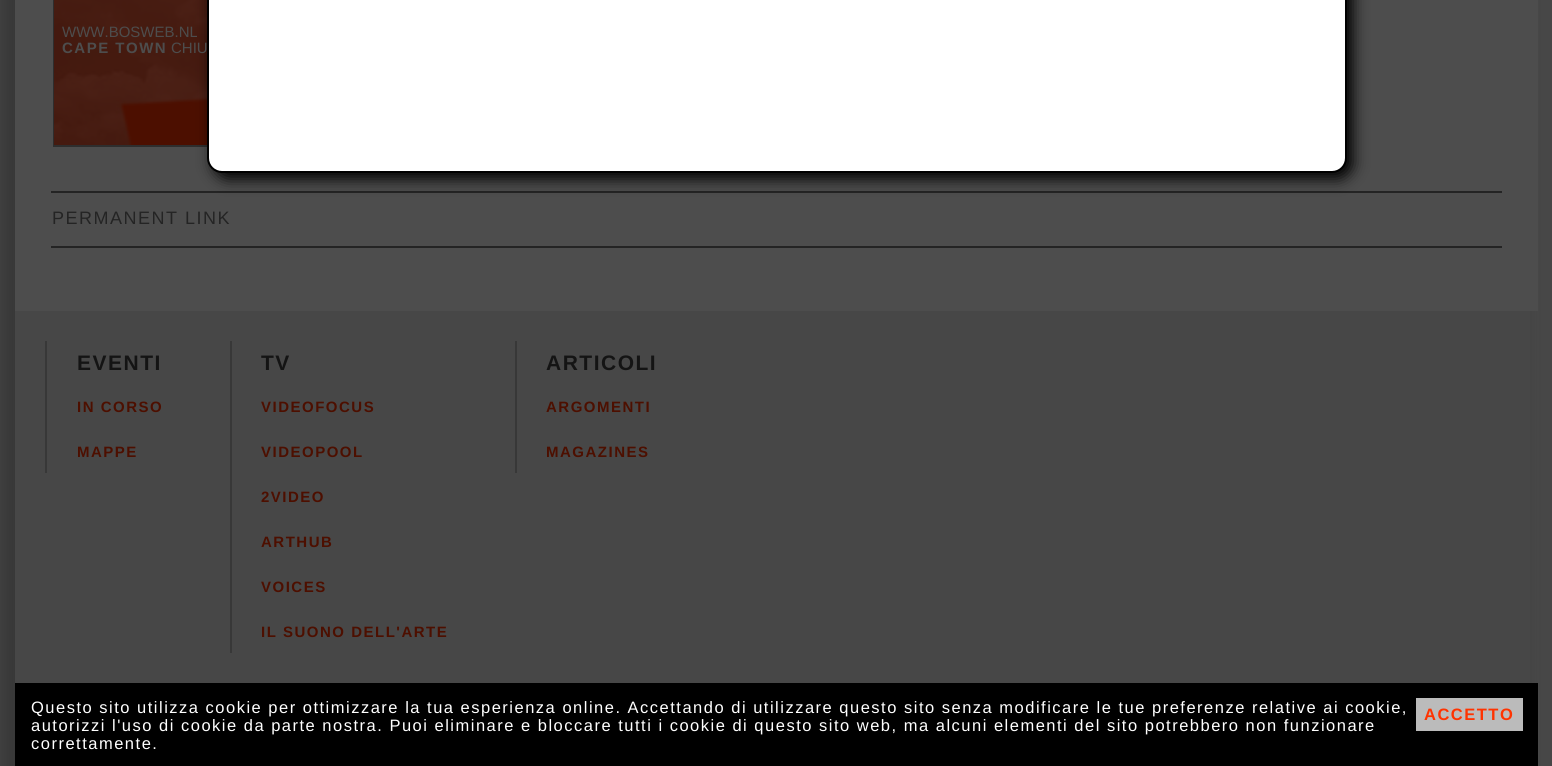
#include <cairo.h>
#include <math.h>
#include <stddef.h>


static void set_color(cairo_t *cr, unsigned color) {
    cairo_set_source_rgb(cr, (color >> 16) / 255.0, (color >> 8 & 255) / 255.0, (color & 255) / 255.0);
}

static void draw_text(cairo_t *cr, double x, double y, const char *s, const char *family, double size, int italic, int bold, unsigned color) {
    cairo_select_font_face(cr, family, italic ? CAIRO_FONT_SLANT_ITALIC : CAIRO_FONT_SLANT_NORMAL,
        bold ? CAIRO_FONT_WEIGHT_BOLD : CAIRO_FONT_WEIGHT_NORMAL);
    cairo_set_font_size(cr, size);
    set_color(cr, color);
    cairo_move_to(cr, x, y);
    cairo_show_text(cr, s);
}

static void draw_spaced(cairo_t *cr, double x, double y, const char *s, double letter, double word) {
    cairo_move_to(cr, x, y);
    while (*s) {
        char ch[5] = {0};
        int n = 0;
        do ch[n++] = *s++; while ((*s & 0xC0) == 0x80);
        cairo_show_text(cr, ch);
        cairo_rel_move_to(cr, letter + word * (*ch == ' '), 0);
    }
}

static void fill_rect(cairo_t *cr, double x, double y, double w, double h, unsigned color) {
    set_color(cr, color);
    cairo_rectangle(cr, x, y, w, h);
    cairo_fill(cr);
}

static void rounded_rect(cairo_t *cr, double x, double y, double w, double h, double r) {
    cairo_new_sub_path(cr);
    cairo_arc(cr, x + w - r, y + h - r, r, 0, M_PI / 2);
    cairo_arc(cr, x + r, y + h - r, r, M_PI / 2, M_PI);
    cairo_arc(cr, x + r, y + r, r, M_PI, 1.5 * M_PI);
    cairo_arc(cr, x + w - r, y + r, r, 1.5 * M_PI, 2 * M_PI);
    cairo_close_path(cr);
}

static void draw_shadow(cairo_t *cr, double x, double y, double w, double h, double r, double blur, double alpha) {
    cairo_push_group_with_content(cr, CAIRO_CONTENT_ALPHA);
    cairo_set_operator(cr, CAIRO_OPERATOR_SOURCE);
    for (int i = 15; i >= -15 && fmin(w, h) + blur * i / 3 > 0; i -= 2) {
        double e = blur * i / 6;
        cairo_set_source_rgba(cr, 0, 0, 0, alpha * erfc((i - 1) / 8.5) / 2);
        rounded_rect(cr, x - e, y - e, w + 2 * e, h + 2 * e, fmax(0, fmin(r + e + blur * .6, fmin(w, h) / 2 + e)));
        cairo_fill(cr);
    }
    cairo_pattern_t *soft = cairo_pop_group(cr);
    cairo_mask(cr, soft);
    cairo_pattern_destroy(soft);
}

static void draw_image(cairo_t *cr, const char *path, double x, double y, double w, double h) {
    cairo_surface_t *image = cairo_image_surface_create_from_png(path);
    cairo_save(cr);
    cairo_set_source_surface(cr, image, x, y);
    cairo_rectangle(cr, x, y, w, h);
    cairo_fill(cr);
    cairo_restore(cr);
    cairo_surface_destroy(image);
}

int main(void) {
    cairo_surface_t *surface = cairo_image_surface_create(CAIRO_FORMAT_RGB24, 1552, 766);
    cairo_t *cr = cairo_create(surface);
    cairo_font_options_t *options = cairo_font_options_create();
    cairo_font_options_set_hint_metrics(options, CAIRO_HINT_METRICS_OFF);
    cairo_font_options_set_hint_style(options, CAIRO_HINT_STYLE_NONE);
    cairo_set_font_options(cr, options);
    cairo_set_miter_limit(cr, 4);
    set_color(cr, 0x474747);
    cairo_paint(cr);
    set_color(cr, 0x383838);
    draw_shadow(cr, 0, -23, 1523, 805, 0, 7.5, 1);
    fill_rect(cr, 15, 0, 1523, 311, 0x4D4D4D);
    cairo_rectangle(cr, 54, -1, 445, 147);
    set_color(cr, 0x2E2E2E);
    cairo_stroke(cr);
    draw_image(cr, "assets/img1.png", 54, 0, 153, 145);
    fill_rect(cr, 51, 191, 1451, 2, 0x242424);
    set_color(cr, 0x000000);
    draw_shadow(cr, 213, -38, 1140, 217, 15, 7.5, 1);
    set_color(cr, 0xFFFFFF);
    rounded_rect(cr, 208, -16, 1138, 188, 14);
    cairo_fill_preserve(cr);
    set_color(cr, 0x000000);
    cairo_stroke(cr);
    draw_text(cr, 62, 37, "WWW.BOSWEB.NL", "Liberation Sans", 15, 0, 0, 0x4D4D4D);
    cairo_select_font_face(cr, "Liberation Sans", CAIRO_FONT_SLANT_NORMAL, CAIRO_FONT_WEIGHT_BOLD);
    draw_spaced(cr, 62, 53, "CAPE TOWN", 1.5, 0);
    draw_text(cr, 171, 53, "CHIU", "Liberation Sans", 15, 0, 0, 0x4D4D4D);
    fill_rect(cr, 51, 246, 1451, 2, 0x242424);
    cairo_set_font_size(cr, 18);
    draw_spaced(cr, 52, 224, "PERMANENT LINK", 1.5, 0);
    fill_rect(cr, 15, 311, 1515, 372, 0x474747);
    fill_rect(cr, 45, 341, 2, 132, 0x383838);
    cairo_select_font_face(cr, "Liberation Sans", CAIRO_FONT_SLANT_NORMAL, CAIRO_FONT_WEIGHT_BOLD);
    cairo_set_font_size(cr, 21);
    set_color(cr, 0x141414);
    draw_spaced(cr, 77, 370, "EVENTI", 1.5, 0);
    cairo_set_font_size(cr, 15);
    set_color(cr, 0x4D0F00);
    draw_spaced(cr, 77, 412, "IN CORSO", 1.5, 0);
    draw_spaced(cr, 77, 457, "MAPPE", 1.5, 0);
    fill_rect(cr, 230, 341, 2, 312, 0x383838);
    cairo_set_font_size(cr, 21);
    set_color(cr, 0x141414);
    draw_spaced(cr, 261, 370, "TV", 1.5, 0);
    cairo_set_font_size(cr, 15);
    set_color(cr, 0x4D0F00);
    draw_spaced(cr, 261, 412, "VIDEOFOCUS", 1.5, 0);
    draw_spaced(cr, 261, 457, "VIDEOPOOL", 1.5, 0);
    draw_spaced(cr, 261, 502, "2VIDEO", 1.5, 0);
    draw_spaced(cr, 261, 547, "ARTHUB", 1.5, 0);
    draw_spaced(cr, 261, 592, "VOICES", 1.5, 0);
    draw_spaced(cr, 261, 637, "IL SUONO DELL'ARTE", 1.5, 0);
    fill_rect(cr, 515, 341, 2, 132, 0x383838);
    cairo_set_font_size(cr, 21);
    set_color(cr, 0x141414);
    draw_spaced(cr, 546, 370, "ARTICOLI", 1.5, 0);
    cairo_set_font_size(cr, 15);
    set_color(cr, 0x4D0F00);
    draw_spaced(cr, 546, 412, "ARGOMENTI", 1.5, 0);
    draw_spaced(cr, 546, 457, "MAGAZINES", 1.5, 0);
    fill_rect(cr, 15, 683, 1523, 83, 0x000000);
    cairo_select_font_face(cr, "Liberation Sans", CAIRO_FONT_SLANT_NORMAL, CAIRO_FONT_WEIGHT_NORMAL);
    cairo_set_font_size(cr, 16.5);
    set_color(cr, 0xFFFFFF);
    draw_spaced(cr, 31, 713, "Questo sito utilizza cookie per ottimizzare la tua esperienza online. Accettando di utilizzare questo sito senza modificare le tue preferenze relative ai cookie,", 1.5, 0);
    draw_spaced(cr, 31, 731, "autorizzi l'uso di cookie da parte nostra. Puoi eliminare e bloccare tutti i cookie di questo sito web, ma alcuni elementi del sito potrebbero non funzionare", 1.5, 0);
    draw_spaced(cr, 31, 749, "correttamente.", 1.5, 0);
    fill_rect(cr, 1416, 698, 107, 33, 0xBBBBBB);
    cairo_select_font_face(cr, "Liberation Sans", CAIRO_FONT_SLANT_NORMAL, CAIRO_FONT_WEIGHT_BOLD);
    set_color(cr, 0xFF3300);
    draw_spaced(cr, 1424, 720, "ACCETTO", 1.5, 0);
    cairo_surface_write_to_png(surface, "output.png");
    cairo_font_options_destroy(options);
    cairo_destroy(cr);
    cairo_surface_destroy(surface);
    return 0;
}
